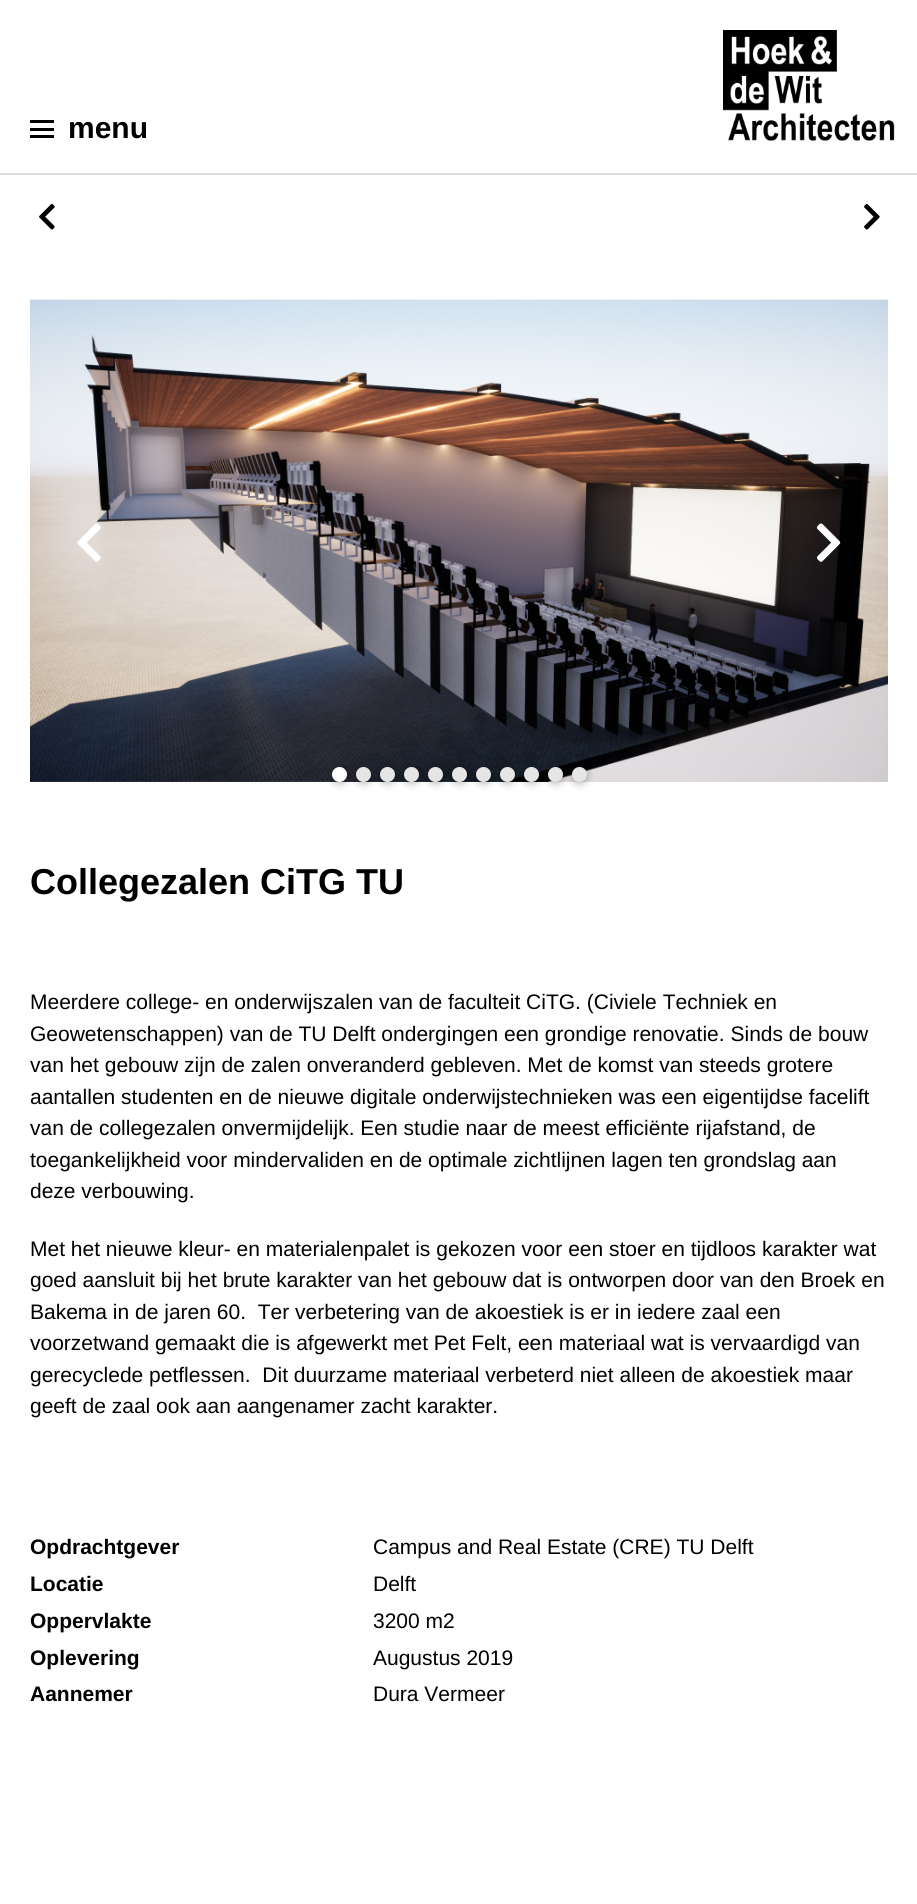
#include <cairo.h>
#include <math.h>
#include <stddef.h>


static void set_color(cairo_t *cr, unsigned color) {
    cairo_set_source_rgb(cr, (color >> 16) / 255.0, (color >> 8 & 255) / 255.0, (color & 255) / 255.0);
}

static void draw_text(cairo_t *cr, double x, double y, const char *s, const char *family, double size, int italic, int bold, unsigned color) {
    cairo_select_font_face(cr, family, italic ? CAIRO_FONT_SLANT_ITALIC : CAIRO_FONT_SLANT_NORMAL,
        bold ? CAIRO_FONT_WEIGHT_BOLD : CAIRO_FONT_WEIGHT_NORMAL);
    cairo_set_font_size(cr, size);
    set_color(cr, color);
    cairo_move_to(cr, x, y);
    cairo_show_text(cr, s);
}

static void fill_rect(cairo_t *cr, double x, double y, double w, double h, unsigned color) {
    set_color(cr, color);
    cairo_rectangle(cr, x, y, w, h);
    cairo_fill(cr);
}

static void rounded_rect(cairo_t *cr, double x, double y, double w, double h, double r) {
    cairo_new_sub_path(cr);
    cairo_arc(cr, x + w - r, y + h - r, r, 0, M_PI / 2);
    cairo_arc(cr, x + r, y + h - r, r, M_PI / 2, M_PI);
    cairo_arc(cr, x + r, y + r, r, M_PI, 1.5 * M_PI);
    cairo_arc(cr, x + w - r, y + r, r, 1.5 * M_PI, 2 * M_PI);
    cairo_close_path(cr);
}

static void draw_shadow(cairo_t *cr, double x, double y, double w, double h, double r, double blur, double alpha) {
    cairo_push_group_with_content(cr, CAIRO_CONTENT_ALPHA);
    cairo_set_operator(cr, CAIRO_OPERATOR_SOURCE);
    for (int i = 15; i >= -15 && fmin(w, h) + blur * i / 3 > 0; i -= 2) {
        double e = blur * i / 6;
        cairo_set_source_rgba(cr, 0, 0, 0, alpha * erfc((i - 1) / 8.5) / 2);
        rounded_rect(cr, x - e, y - e, w + 2 * e, h + 2 * e, fmax(0, fmin(r + e + blur * .6, fmin(w, h) / 2 + e)));
        cairo_fill(cr);
    }
    cairo_pattern_t *soft = cairo_pop_group(cr);
    cairo_mask(cr, soft);
    cairo_pattern_destroy(soft);
}

static void draw_image(cairo_t *cr, const char *path, double x, double y, double w, double h) {
    cairo_surface_t *image = cairo_image_surface_create_from_png(path);
    cairo_save(cr);
    cairo_set_source_surface(cr, image, x, y);
    cairo_rectangle(cr, x, y, w, h);
    cairo_fill(cr);
    cairo_restore(cr);
    cairo_surface_destroy(image);
}

int main(void) {
    cairo_surface_t *surface = cairo_image_surface_create(CAIRO_FORMAT_RGB24, 917, 1904);
    cairo_t *cr = cairo_create(surface);
    cairo_font_options_t *options = cairo_font_options_create();
    cairo_font_options_set_hint_metrics(options, CAIRO_HINT_METRICS_OFF);
    cairo_font_options_set_hint_style(options, CAIRO_HINT_STYLE_NONE);
    cairo_set_font_options(cr, options);
    cairo_set_miter_limit(cr, 4);
    set_color(cr, 0xFFFFFF);
    cairo_paint(cr);
    fill_rect(cr, 30, 120, 24, 3, 0x000000);
    fill_rect(cr, 30, 128, 24, 3, 0x000000);
    fill_rect(cr, 30, 135, 24, 3, 0x000000);
    draw_text(cr, 68, 138, "menu", "Liberation Sans", 30, 0, 1, 0x000000);
    fill_rect(cr, 0, 173, 917, 2, 0xDBDBDB);
    draw_image(cr, "assets/img1.png", 723, 30, 172, 111);
    draw_image(cr, "assets/img2.png", 39, 204, 16, 26);
    draw_image(cr, "assets/img3.png", 864, 204, 16, 26);
    draw_image(cr, "assets/img4.png", 30, 299, 858, 483);
    draw_image(cr, "assets/img5.png", 77, 523, 24, 39);
    draw_image(cr, "assets/img6.png", 816, 523, 25, 39);
    set_color(cr, 0x000000);
    draw_shadow(cr, 332, 768, 15, 15, 7.5, 4, 0.3);
    set_color(cr, 0xFFFFFF);
    cairo_arc(cr, 339.5, 774.5, 7.5, 0, 2 * M_PI);
    cairo_fill(cr);
    set_color(cr, 0x000000);
    draw_shadow(cr, 356, 768, 15, 15, 7.5, 4, 0.3);
    set_color(cr, 0xE5E5E5);
    cairo_arc(cr, 363.5, 774.5, 7.5, 0, 2 * M_PI);
    cairo_fill(cr);
    set_color(cr, 0x000000);
    draw_shadow(cr, 380, 768, 15, 15, 7.5, 4, 0.3);
    set_color(cr, 0xE5E5E5);
    cairo_arc(cr, 387.5, 774.5, 7.5, 0, 2 * M_PI);
    cairo_fill(cr);
    set_color(cr, 0x000000);
    draw_shadow(cr, 404, 768, 15, 15, 7.5, 4, 0.3);
    set_color(cr, 0xE5E5E5);
    cairo_arc(cr, 411.5, 774.5, 7.5, 0, 2 * M_PI);
    cairo_fill(cr);
    set_color(cr, 0x000000);
    draw_shadow(cr, 428, 768, 15, 15, 7.5, 4, 0.3);
    set_color(cr, 0xE5E5E5);
    cairo_arc(cr, 435.5, 774.5, 7.5, 0, 2 * M_PI);
    cairo_fill(cr);
    set_color(cr, 0x000000);
    draw_shadow(cr, 452, 768, 15, 15, 7.5, 4, 0.3);
    set_color(cr, 0xE5E5E5);
    cairo_arc(cr, 459.5, 774.5, 7.5, 0, 2 * M_PI);
    cairo_fill(cr);
    set_color(cr, 0x000000);
    draw_shadow(cr, 476, 768, 15, 15, 7.5, 4, 0.3);
    set_color(cr, 0xE5E5E5);
    cairo_arc(cr, 483.5, 774.5, 7.5, 0, 2 * M_PI);
    cairo_fill(cr);
    set_color(cr, 0x000000);
    draw_shadow(cr, 500, 768, 15, 15, 7.5, 4, 0.3);
    set_color(cr, 0xE5E5E5);
    cairo_arc(cr, 507.5, 774.5, 7.5, 0, 2 * M_PI);
    cairo_fill(cr);
    set_color(cr, 0x000000);
    draw_shadow(cr, 524, 768, 15, 15, 7.5, 4, 0.3);
    set_color(cr, 0xE5E5E5);
    cairo_arc(cr, 531.5, 774.5, 7.5, 0, 2 * M_PI);
    cairo_fill(cr);
    set_color(cr, 0x000000);
    draw_shadow(cr, 548, 768, 15, 15, 7.5, 4, 0.3);
    set_color(cr, 0xE5E5E5);
    cairo_arc(cr, 555.5, 774.5, 7.5, 0, 2 * M_PI);
    cairo_fill(cr);
    set_color(cr, 0x000000);
    draw_shadow(cr, 572, 768, 15, 15, 7.5, 4, 0.3);
    set_color(cr, 0xE5E5E5);
    cairo_arc(cr, 579.5, 774.5, 7.5, 0, 2 * M_PI);
    cairo_fill(cr);
    draw_text(cr, 30, 894, "Collegezalen CiTG TU", "Liberation Sans", 36, 0, 1, 0x000000);
    draw_text(cr, 30, 1009, "Meerdere college- en onderwijszalen van de faculteit CiTG. (Civiele Techniek en", "Liberation Sans", 21, 0, 0, 0x000000);
    draw_text(cr, 30, 1041, "Geowetenschappen) van de TU Delft ondergingen een grondige renovatie. Sinds de bouw", "Liberation Sans", 21, 0, 0, 0x000000);
    draw_text(cr, 30, 1072, "van het gebouw zijn de zalen onveranderd gebleven. Met de komst van steeds grotere", "Liberation Sans", 21, 0, 0, 0x000000);
    draw_text(cr, 30, 1104, "aantallen studenten en de nieuwe digitale onderwijstechnieken was een eigentijdse facelift", "Liberation Sans", 21, 0, 0, 0x000000);
    draw_text(cr, 30, 1135, "van de collegezalen onvermijdelijk. Een studie naar de meest efficiënte rijafstand, de", "Liberation Sans", 21, 0, 0, 0x000000);
    draw_text(cr, 30, 1167, "toegankelijkheid voor mindervaliden en de optimale zichtlijnen lagen ten grondslag aan", "Liberation Sans", 21, 0, 0, 0x000000);
    draw_text(cr, 30, 1198, "deze verbouwing.", "Liberation Sans", 21, 0, 0, 0x000000);
    draw_text(cr, 30, 1256, "Met het nieuwe kleur- en materialenpalet is gekozen voor een stoer en tijdloos karakter wat", "Liberation Sans", 21, 0, 0, 0x000000);
    draw_text(cr, 30, 1287, "goed aansluit bij het brute karakter van het gebouw dat is ontworpen door van den Broek en", "Liberation Sans", 21, 0, 0, 0x000000);
    draw_text(cr, 30, 1319, "Bakema in de jaren 60.  Ter verbetering van de akoestiek is er in iedere zaal een", "Liberation Sans", 21, 0, 0, 0x000000);
    draw_text(cr, 30, 1350, "voorzetwand gemaakt die is afgewerkt met Pet Felt, een materiaal wat is vervaardigd van", "Liberation Sans", 21, 0, 0, 0x000000);
    draw_text(cr, 30, 1382, "gerecyclede petflessen.  Dit duurzame materiaal verbeterd niet alleen de akoestiek maar", "Liberation Sans", 21, 0, 0, 0x000000);
    draw_text(cr, 30, 1413, "geeft de zaal ook aan aangenamer zacht karakter.", "Liberation Sans", 21, 0, 0, 0x000000);
    draw_text(cr, 30, 1554, "Opdrachtgever", "Liberation Sans", 21, 0, 1, 0x000000);
    draw_text(cr, 373, 1554, "Campus and Real Estate (CRE) TU Delft", "Liberation Sans", 21, 0, 0, 0x000000);
    draw_text(cr, 30, 1591, "Locatie", "Liberation Sans", 21, 0, 1, 0x000000);
    draw_text(cr, 373, 1591, "Delft", "Liberation Sans", 21, 0, 0, 0x000000);
    draw_text(cr, 30, 1628, "Oppervlakte", "Liberation Sans", 21, 0, 1, 0x000000);
    draw_text(cr, 373, 1628, "3200 m2", "Liberation Sans", 21, 0, 0, 0x000000);
    draw_text(cr, 30, 1665, "Oplevering", "Liberation Sans", 21, 0, 1, 0x000000);
    draw_text(cr, 373, 1665, "Augustus 2019", "Liberation Sans", 21, 0, 0, 0x000000);
    draw_text(cr, 30, 1701, "Aannemer", "Liberation Sans", 21, 0, 1, 0x000000);
    draw_text(cr, 373, 1701, "Dura Vermeer", "Liberation Sans", 21, 0, 0, 0x000000);
    cairo_surface_write_to_png(surface, "output.png");
    cairo_font_options_destroy(options);
    cairo_destroy(cr);
    cairo_surface_destroy(surface);
    return 0;
}
